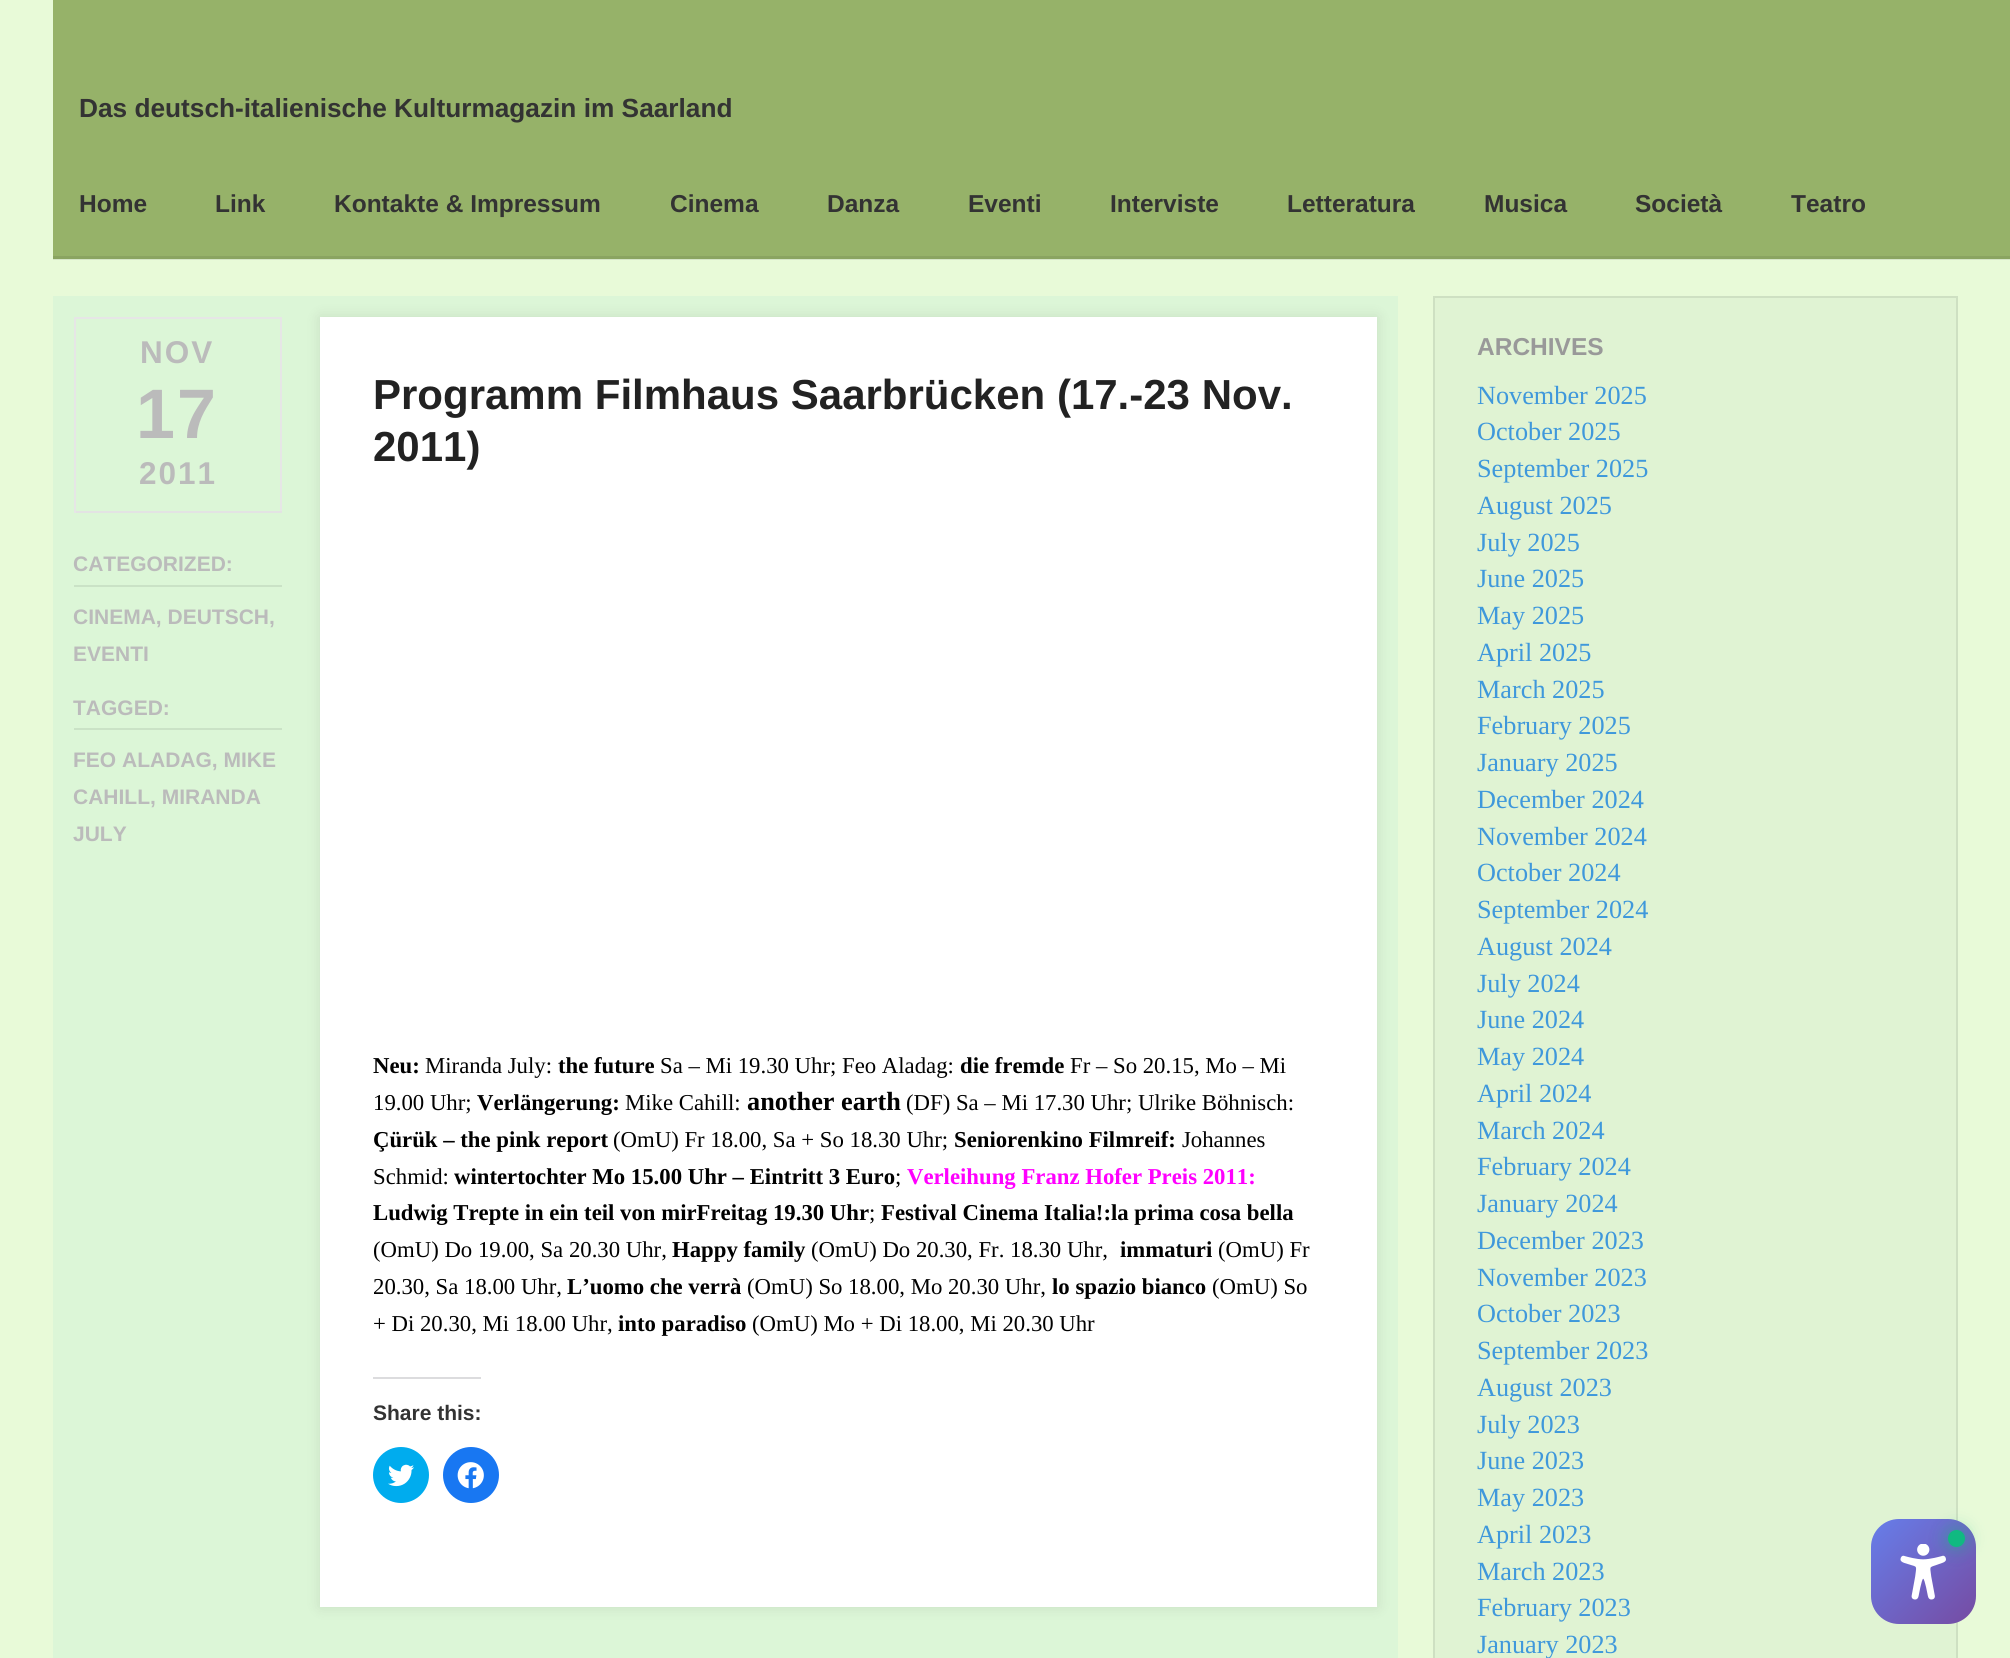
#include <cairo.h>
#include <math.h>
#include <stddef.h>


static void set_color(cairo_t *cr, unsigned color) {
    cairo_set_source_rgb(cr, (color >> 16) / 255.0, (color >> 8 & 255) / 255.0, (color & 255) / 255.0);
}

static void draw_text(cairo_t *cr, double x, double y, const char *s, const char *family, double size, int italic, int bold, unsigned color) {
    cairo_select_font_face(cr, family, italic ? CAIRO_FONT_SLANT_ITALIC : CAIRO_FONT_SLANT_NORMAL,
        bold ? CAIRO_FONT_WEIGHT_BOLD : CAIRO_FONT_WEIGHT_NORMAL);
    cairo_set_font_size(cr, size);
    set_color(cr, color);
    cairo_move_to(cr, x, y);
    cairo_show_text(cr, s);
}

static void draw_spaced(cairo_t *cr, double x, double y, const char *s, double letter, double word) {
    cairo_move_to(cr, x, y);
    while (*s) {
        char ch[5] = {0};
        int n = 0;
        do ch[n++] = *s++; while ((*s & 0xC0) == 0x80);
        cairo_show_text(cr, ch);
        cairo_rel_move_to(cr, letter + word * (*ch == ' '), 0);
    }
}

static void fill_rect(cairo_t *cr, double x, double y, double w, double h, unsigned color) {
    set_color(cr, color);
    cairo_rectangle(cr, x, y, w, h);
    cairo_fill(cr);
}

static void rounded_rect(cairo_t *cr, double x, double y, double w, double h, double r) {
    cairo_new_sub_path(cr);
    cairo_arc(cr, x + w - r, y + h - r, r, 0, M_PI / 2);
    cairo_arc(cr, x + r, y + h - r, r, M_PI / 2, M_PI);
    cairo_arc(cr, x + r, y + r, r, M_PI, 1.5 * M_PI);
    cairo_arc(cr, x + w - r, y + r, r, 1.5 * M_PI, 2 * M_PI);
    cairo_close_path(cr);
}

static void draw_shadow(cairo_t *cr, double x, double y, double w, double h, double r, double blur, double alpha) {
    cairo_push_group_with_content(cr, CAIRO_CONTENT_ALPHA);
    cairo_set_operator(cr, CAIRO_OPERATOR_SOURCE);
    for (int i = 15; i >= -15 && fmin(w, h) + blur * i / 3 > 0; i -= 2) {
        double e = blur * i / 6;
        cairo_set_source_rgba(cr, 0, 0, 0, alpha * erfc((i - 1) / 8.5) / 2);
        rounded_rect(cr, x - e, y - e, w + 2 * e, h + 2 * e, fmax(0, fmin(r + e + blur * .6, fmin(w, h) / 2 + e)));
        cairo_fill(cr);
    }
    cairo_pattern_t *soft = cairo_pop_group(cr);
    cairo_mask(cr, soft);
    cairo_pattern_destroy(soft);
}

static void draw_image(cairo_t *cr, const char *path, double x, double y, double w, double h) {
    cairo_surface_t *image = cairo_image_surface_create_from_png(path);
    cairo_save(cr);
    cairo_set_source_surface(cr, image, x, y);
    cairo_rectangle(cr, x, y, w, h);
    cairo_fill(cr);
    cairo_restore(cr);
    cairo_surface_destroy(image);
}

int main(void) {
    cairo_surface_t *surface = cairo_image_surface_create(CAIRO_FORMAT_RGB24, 2010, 1658);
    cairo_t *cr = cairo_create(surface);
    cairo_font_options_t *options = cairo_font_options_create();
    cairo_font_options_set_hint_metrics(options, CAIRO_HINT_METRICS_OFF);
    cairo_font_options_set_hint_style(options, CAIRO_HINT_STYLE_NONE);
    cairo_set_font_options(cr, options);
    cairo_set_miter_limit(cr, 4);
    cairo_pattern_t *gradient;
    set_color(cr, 0xE8FAD8);
    cairo_paint(cr);
    fill_rect(cr, 53, 259, 1957, 1, 0xD5E6C7);
    fill_rect(cr, 53, 0, 1957, 256, 0x96B269);
    fill_rect(cr, 53, 256, 1957, 3, 0x8AA461);
    draw_text(cr, 79, 117, "Das deutsch-italienische Kulturmagazin im Saarland", "Liberation Sans", 26.25, 0, 1, 0x333333);
    draw_text(cr, 79, 212, "Home", "Liberation Sans", 24.5, 0, 1, 0x333333);
    draw_text(cr, 215, 212, "Link", "Liberation Sans", 24.5, 0, 1, 0x333333);
    draw_text(cr, 334, 212, "Kontakte & Impressum", "Liberation Sans", 24.5, 0, 1, 0x333333);
    draw_text(cr, 670, 212, "Cinema", "Liberation Sans", 24.5, 0, 1, 0x333333);
    draw_text(cr, 827, 212, "Danza", "Liberation Sans", 24.5, 0, 1, 0x333333);
    draw_text(cr, 968, 212, "Eventi", "Liberation Sans", 24.5, 0, 1, 0x333333);
    draw_text(cr, 1110, 212, "Interviste", "Liberation Sans", 24.5, 0, 1, 0x333333);
    draw_text(cr, 1287, 212, "Letteratura", "Liberation Sans", 24.5, 0, 1, 0x333333);
    draw_text(cr, 1484, 212, "Musica", "Liberation Sans", 24.5, 0, 1, 0x333333);
    draw_text(cr, 1635, 212, "Società", "Liberation Sans", 24.5, 0, 1, 0x333333);
    draw_text(cr, 1791, 212, "Teatro", "Liberation Sans", 24.5, 0, 1, 0x333333);
    fill_rect(cr, 53, 296, 1345, 1362, 0xDCF6D7);
    fill_rect(cr, 74, 317, 208, 2, 0xE6E6E6);
    fill_rect(cr, 280, 317, 2, 196, 0xE6E6E6);
    fill_rect(cr, 74, 511, 208, 2, 0xE3E3E3);
    fill_rect(cr, 74, 317, 2, 196, 0xE6E6E6);
    cairo_set_font_size(cr, 31.5);
    set_color(cr, 0xBBBBBB);
    draw_spaced(cr, 140, 363, "NOV", 2, 0);
    cairo_set_font_size(cr, 70);
    draw_spaced(cr, 136, 438, "17", 2, 0);
    cairo_set_font_size(cr, 31.5);
    draw_spaced(cr, 139, 484, "2011", 2, 0);
    fill_rect(cr, 74, 585, 208, 2, 0xCAE2C6);
    draw_text(cr, 73, 571, "CATEGORIZED:", "Liberation Sans", 21, 0, 1, 0xBBBBBB);
    draw_text(cr, 73, 624, "CINEMA, DEUTSCH,", "Liberation Sans", 21, 0, 1, 0xBBBBBB);
    draw_text(cr, 73, 661, "EVENTI", "Liberation Sans", 21, 0, 1, 0xBBBBBB);
    fill_rect(cr, 74, 728, 208, 2, 0xCAE2C6);
    draw_text(cr, 73, 715, "TAGGED:", "Liberation Sans", 21, 0, 1, 0xBBBBBB);
    draw_text(cr, 73, 767, "FEO ALADAG, MIKE", "Liberation Sans", 21, 0, 1, 0xBBBBBB);
    draw_text(cr, 73, 804, "CAHILL, MIRANDA", "Liberation Sans", 21, 0, 1, 0xBBBBBB);
    draw_text(cr, 73, 841, "JULY", "Liberation Sans", 21, 0, 1, 0xBBBBBB);
    set_color(cr, 0x000000);
    draw_shadow(cr, 320, 317, 1057, 1290, 0, 7, 0.1);
    fill_rect(cr, 320, 317, 1057, 1290, 0xFFFFFF);
    draw_text(cr, 373, 409, "Programm Filmhaus Saarbrücken (17.-23 Nov.", "Liberation Sans", 42, 0, 1, 0x222222);
    draw_text(cr, 373, 461, "2011)", "Liberation Sans", 42, 0, 1, 0x222222);
    draw_text(cr, 373, 1073, "Neu:", "Liberation Serif", 22.75, 0, 1, 0x000000);
    draw_text(cr, 425, 1073, "Miranda July:", "Liberation Serif", 22.75, 0, 0, 0x000000);
    draw_text(cr, 558, 1073, "the future", "Liberation Serif", 22.75, 0, 1, 0x000000);
    draw_text(cr, 660, 1073, "Sa – Mi 19.30 Uhr; Feo Aladag:", "Liberation Serif", 22.75, 0, 0, 0x000000);
    draw_text(cr, 960, 1073, "die fremde", "Liberation Serif", 22.75, 0, 1, 0x000000);
    draw_text(cr, 1070, 1073, "Fr – So 20.15, Mo – Mi", "Liberation Serif", 22.75, 0, 0, 0x000000);
    draw_text(cr, 373, 1110, "19.00 Uhr;", "Liberation Serif", 22.75, 0, 0, 0x000000);
    draw_text(cr, 477, 1110, "Verlängerung:", "Liberation Serif", 22.75, 0, 1, 0x000000);
    draw_text(cr, 625, 1110, "Mike Cahill:", "Liberation Serif", 22.75, 0, 0, 0x000000);
    draw_text(cr, 747, 1110, "another earth", "Liberation Serif", 26.25, 0, 1, 0x000000);
    draw_text(cr, 906, 1110, "(DF) Sa – Mi 17.30 Uhr; Ulrike Böhnisch:", "Liberation Serif", 22.75, 0, 0, 0x000000);
    draw_text(cr, 373, 1147, "Çürük – the pink report", "Liberation Serif", 22.75, 0, 1, 0x000000);
    draw_text(cr, 613, 1147, "(OmU) Fr 18.00, Sa + So 18.30 Uhr;", "Liberation Serif", 22.75, 0, 0, 0x000000);
    draw_text(cr, 954, 1147, "Seniorenkino Filmreif:", "Liberation Serif", 22.75, 0, 1, 0x000000);
    draw_text(cr, 1182, 1147, "Johannes", "Liberation Serif", 22.75, 0, 0, 0x000000);
    draw_text(cr, 373, 1184, "Schmid:", "Liberation Serif", 22.75, 0, 0, 0x000000);
    draw_text(cr, 454, 1184, "wintertochter Mo 15.00 Uhr – Eintritt 3 Euro", "Liberation Serif", 22.75, 0, 1, 0x000000);
    draw_text(cr, 895, 1184, ";", "Liberation Serif", 22.75, 0, 0, 0x000000);
    draw_text(cr, 907, 1184, "Verleihung Franz Hofer Preis 2011:", "Liberation Serif", 22.75, 0, 1, 0xFF00FF);
    draw_text(cr, 373, 1220, "Ludwig Trepte in ein teil von mirFreitag 19.30 Uhr", "Liberation Serif", 22.75, 0, 1, 0x000000);
    draw_text(cr, 869, 1220, ";", "Liberation Serif", 22.75, 0, 0, 0x000000);
    draw_text(cr, 881, 1220, "Festival Cinema Italia!:la prima cosa bella", "Liberation Serif", 22.75, 0, 1, 0x000000);
    draw_text(cr, 373, 1257, "(OmU) Do 19.00, Sa 20.30 Uhr,", "Liberation Serif", 22.75, 0, 0, 0x000000);
    draw_text(cr, 672, 1257, "Happy family", "Liberation Serif", 22.75, 0, 1, 0x000000);
    draw_text(cr, 811, 1257, "(OmU) Do 20.30, Fr. 18.30 Uhr,", "Liberation Serif", 22.75, 0, 0, 0x000000);
    draw_text(cr, 1120, 1257, "immaturi", "Liberation Serif", 22.75, 0, 1, 0x000000);
    draw_text(cr, 1218, 1257, "(OmU) Fr", "Liberation Serif", 22.75, 0, 0, 0x000000);
    draw_text(cr, 373, 1294, "20.30, Sa 18.00 Uhr,", "Liberation Serif", 22.75, 0, 0, 0x000000);
    draw_text(cr, 567, 1294, "L’uomo che verrà", "Liberation Serif", 22.75, 0, 1, 0x000000);
    draw_text(cr, 747, 1294, "(OmU) So 18.00, Mo 20.30 Uhr,", "Liberation Serif", 22.75, 0, 0, 0x000000);
    draw_text(cr, 1052, 1294, "lo spazio bianco", "Liberation Serif", 22.75, 0, 1, 0x000000);
    draw_text(cr, 1212, 1294, "(OmU) So", "Liberation Serif", 22.75, 0, 0, 0x000000);
    draw_text(cr, 373, 1331, "+ Di 20.30, Mi 18.00 Uhr,", "Liberation Serif", 22.75, 0, 0, 0x000000);
    draw_text(cr, 618, 1331, "into paradiso", "Liberation Serif", 22.75, 0, 1, 0x000000);
    draw_text(cr, 752, 1331, "(OmU) Mo + Di 18.00, Mi 20.30 Uhr", "Liberation Serif", 22.75, 0, 0, 0x000000);
    fill_rect(cr, 373, 1377, 108, 2, 0xDCDCDE);
    draw_text(cr, 373, 1420, "Share this:", "Liberation Sans", 21, 0, 1, 0x333333);
    set_color(cr, 0x00ACEE);
    cairo_new_path(cr);
    cairo_arc(cr, 401, 1475, 28, 0, 2 * M_PI);
    cairo_fill(cr);
    draw_image(cr, "assets/img1.png", 388, 1464, 26, 23);
    set_color(cr, 0x1877F2);
    cairo_arc(cr, 471, 1475, 28, 0, 2 * M_PI);
    cairo_fill(cr);
    draw_image(cr, "assets/img2.png", 457, 1462, 27, 27);
    set_color(cr, 0xE0F3D3);
    cairo_rectangle(cr, 1434, 297, 523, 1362);
    cairo_fill_preserve(cr);
    set_color(cr, 0xCEE0C2);
    cairo_stroke(cr);
    draw_text(cr, 1477, 355, "ARCHIVES", "Liberation Sans", 24.5, 0, 1, 0x999999);
    draw_text(cr, 1477, 404, "November 2025", "Liberation Serif", 26.25, 0, 0, 0x3F98DB);
    draw_text(cr, 1477, 440, "October 2025", "Liberation Serif", 26.25, 0, 0, 0x3F98DB);
    draw_text(cr, 1477, 477, "September 2025", "Liberation Serif", 26.25, 0, 0, 0x3F98DB);
    draw_text(cr, 1477, 514, "August 2025", "Liberation Serif", 26.25, 0, 0, 0x3F98DB);
    draw_text(cr, 1477, 551, "July 2025", "Liberation Serif", 26.25, 0, 0, 0x3F98DB);
    draw_text(cr, 1477, 587, "June 2025", "Liberation Serif", 26.25, 0, 0, 0x3F98DB);
    draw_text(cr, 1477, 624, "May 2025", "Liberation Serif", 26.25, 0, 0, 0x3F98DB);
    draw_text(cr, 1477, 661, "April 2025", "Liberation Serif", 26.25, 0, 0, 0x3F98DB);
    draw_text(cr, 1477, 698, "March 2025", "Liberation Serif", 26.25, 0, 0, 0x3F98DB);
    draw_text(cr, 1477, 734, "February 2025", "Liberation Serif", 26.25, 0, 0, 0x3F98DB);
    draw_text(cr, 1477, 771, "January 2025", "Liberation Serif", 26.25, 0, 0, 0x3F98DB);
    draw_text(cr, 1477, 808, "December 2024", "Liberation Serif", 26.25, 0, 0, 0x3F98DB);
    draw_text(cr, 1477, 845, "November 2024", "Liberation Serif", 26.25, 0, 0, 0x3F98DB);
    draw_text(cr, 1477, 881, "October 2024", "Liberation Serif", 26.25, 0, 0, 0x3F98DB);
    draw_text(cr, 1477, 918, "September 2024", "Liberation Serif", 26.25, 0, 0, 0x3F98DB);
    draw_text(cr, 1477, 955, "August 2024", "Liberation Serif", 26.25, 0, 0, 0x3F98DB);
    draw_text(cr, 1477, 992, "July 2024", "Liberation Serif", 26.25, 0, 0, 0x3F98DB);
    draw_text(cr, 1477, 1028, "June 2024", "Liberation Serif", 26.25, 0, 0, 0x3F98DB);
    draw_text(cr, 1477, 1065, "May 2024", "Liberation Serif", 26.25, 0, 0, 0x3F98DB);
    draw_text(cr, 1477, 1102, "April 2024", "Liberation Serif", 26.25, 0, 0, 0x3F98DB);
    draw_text(cr, 1477, 1139, "March 2024", "Liberation Serif", 26.25, 0, 0, 0x3F98DB);
    draw_text(cr, 1477, 1175, "February 2024", "Liberation Serif", 26.25, 0, 0, 0x3F98DB);
    draw_text(cr, 1477, 1212, "January 2024", "Liberation Serif", 26.25, 0, 0, 0x3F98DB);
    draw_text(cr, 1477, 1249, "December 2023", "Liberation Serif", 26.25, 0, 0, 0x3F98DB);
    draw_text(cr, 1477, 1286, "November 2023", "Liberation Serif", 26.25, 0, 0, 0x3F98DB);
    draw_text(cr, 1477, 1322, "October 2023", "Liberation Serif", 26.25, 0, 0, 0x3F98DB);
    draw_text(cr, 1477, 1359, "September 2023", "Liberation Serif", 26.25, 0, 0, 0x3F98DB);
    draw_text(cr, 1477, 1396, "August 2023", "Liberation Serif", 26.25, 0, 0, 0x3F98DB);
    draw_text(cr, 1477, 1433, "July 2023", "Liberation Serif", 26.25, 0, 0, 0x3F98DB);
    draw_text(cr, 1477, 1469, "June 2023", "Liberation Serif", 26.25, 0, 0, 0x3F98DB);
    draw_text(cr, 1477, 1506, "May 2023", "Liberation Serif", 26.25, 0, 0, 0x3F98DB);
    draw_text(cr, 1477, 1543, "April 2023", "Liberation Serif", 26.25, 0, 0, 0x3F98DB);
    draw_text(cr, 1477, 1580, "March 2023", "Liberation Serif", 26.25, 0, 0, 0x3F98DB);
    draw_text(cr, 1477, 1616, "February 2023", "Liberation Serif", 26.25, 0, 0, 0x3F98DB);
    draw_text(cr, 1477, 1653, "January 2023", "Liberation Serif", 26.25, 0, 0, 0x3F98DB);
    gradient = cairo_pattern_create_linear(1871, 1519, 1976, 1624);
    cairo_pattern_add_color_stop_rgba(gradient, 0, 0.4, 0.494, 0.918, 1);
    cairo_pattern_add_color_stop_rgba(gradient, 1, 0.463, 0.294, 0.635, 1);
    cairo_set_source(cr, gradient);
    cairo_pattern_destroy(gradient);
    rounded_rect(cr, 1871, 1519, 105, 105, 28);
    cairo_fill(cr);
    draw_image(cr, "assets/img3.png", 1900, 1544, 46, 56);
    set_color(cr, 0x10B981);
    draw_shadow(cr, 1948, 1530, 17, 17, 8.5, 9, 0.5);
    set_color(cr, 0x10B981);
    cairo_arc(cr, 1956.5, 1538.5, 8.5, 0, 2 * M_PI);
    cairo_fill(cr);
    cairo_surface_write_to_png(surface, "output.png");
    cairo_font_options_destroy(options);
    cairo_destroy(cr);
    cairo_surface_destroy(surface);
    return 0;
}
